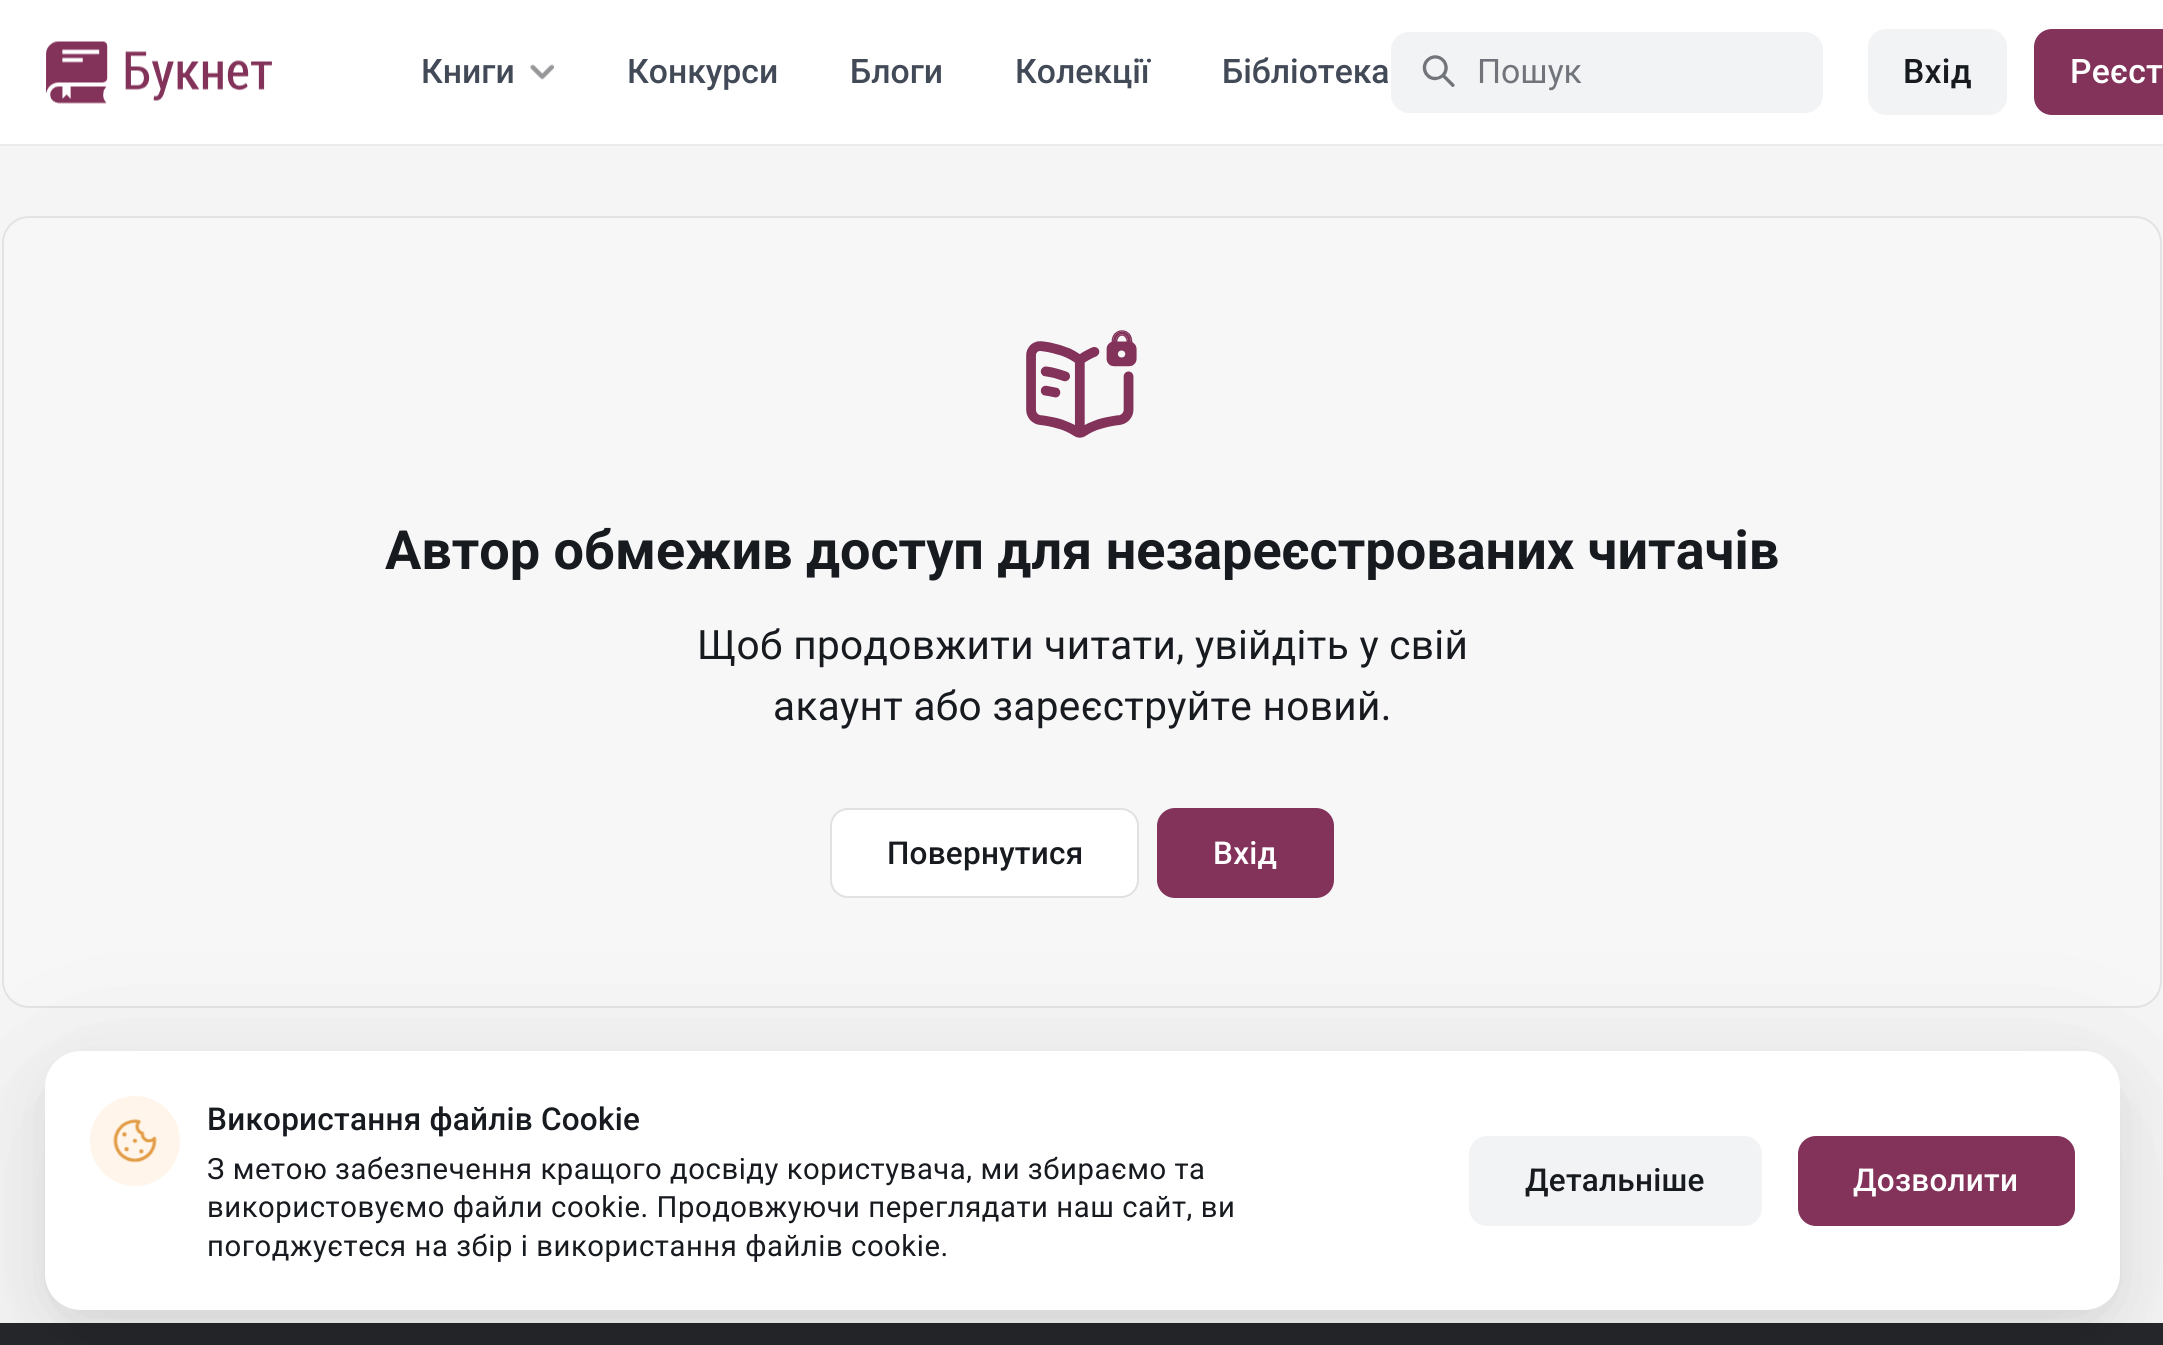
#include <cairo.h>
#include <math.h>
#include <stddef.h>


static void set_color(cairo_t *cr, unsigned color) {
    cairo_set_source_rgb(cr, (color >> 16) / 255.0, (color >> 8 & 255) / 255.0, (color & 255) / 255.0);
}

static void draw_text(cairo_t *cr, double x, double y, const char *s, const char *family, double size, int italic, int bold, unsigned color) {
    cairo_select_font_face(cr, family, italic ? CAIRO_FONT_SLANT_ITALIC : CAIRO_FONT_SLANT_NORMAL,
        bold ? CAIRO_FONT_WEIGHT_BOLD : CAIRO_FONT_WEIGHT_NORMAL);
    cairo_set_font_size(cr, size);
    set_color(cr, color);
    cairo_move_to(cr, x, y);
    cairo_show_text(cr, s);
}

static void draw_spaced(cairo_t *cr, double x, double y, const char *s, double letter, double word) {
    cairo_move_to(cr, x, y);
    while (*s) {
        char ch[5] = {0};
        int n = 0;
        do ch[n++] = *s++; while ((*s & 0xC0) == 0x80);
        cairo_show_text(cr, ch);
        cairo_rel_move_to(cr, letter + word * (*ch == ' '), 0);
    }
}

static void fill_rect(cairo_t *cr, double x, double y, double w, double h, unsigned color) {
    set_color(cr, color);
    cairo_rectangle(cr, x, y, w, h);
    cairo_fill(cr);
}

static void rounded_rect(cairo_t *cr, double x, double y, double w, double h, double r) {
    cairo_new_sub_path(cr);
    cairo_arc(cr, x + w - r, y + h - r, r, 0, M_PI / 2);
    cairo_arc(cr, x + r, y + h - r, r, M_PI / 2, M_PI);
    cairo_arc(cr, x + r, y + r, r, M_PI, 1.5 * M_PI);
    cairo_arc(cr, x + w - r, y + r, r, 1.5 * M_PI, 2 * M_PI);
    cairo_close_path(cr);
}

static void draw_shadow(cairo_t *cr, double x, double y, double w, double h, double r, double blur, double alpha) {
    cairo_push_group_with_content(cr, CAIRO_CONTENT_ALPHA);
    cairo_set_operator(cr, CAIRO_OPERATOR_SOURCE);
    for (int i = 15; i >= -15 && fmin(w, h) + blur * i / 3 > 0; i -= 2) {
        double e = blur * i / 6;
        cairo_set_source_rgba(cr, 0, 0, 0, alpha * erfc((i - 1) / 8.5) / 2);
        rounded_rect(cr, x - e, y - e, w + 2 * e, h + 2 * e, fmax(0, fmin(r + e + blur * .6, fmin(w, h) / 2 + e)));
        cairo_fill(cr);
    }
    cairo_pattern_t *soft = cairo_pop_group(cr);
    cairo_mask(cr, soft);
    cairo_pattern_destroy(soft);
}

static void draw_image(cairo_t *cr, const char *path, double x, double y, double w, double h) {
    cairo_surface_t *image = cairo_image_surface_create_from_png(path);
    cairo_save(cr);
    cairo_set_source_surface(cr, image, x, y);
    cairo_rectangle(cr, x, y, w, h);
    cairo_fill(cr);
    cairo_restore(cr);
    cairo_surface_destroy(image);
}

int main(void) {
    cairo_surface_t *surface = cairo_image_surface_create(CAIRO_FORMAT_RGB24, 2163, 1345);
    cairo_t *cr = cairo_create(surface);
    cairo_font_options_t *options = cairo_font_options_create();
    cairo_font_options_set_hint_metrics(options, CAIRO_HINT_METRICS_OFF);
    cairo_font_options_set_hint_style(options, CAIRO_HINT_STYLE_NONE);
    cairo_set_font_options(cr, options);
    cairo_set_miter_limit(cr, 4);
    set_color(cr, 0xF5F5F5);
    cairo_paint(cr);
    fill_rect(cr, 0, 0, 2163, 144, 0xFFFFFF);
    fill_rect(cr, 0, 144, 2163, 2, 0xEBEBEB);
    draw_image(cr, "assets/img1.png", 46, 41, 226, 63);
    draw_text(cr, 421, 83, "Книги", "Roboto Medium", 33.75, 0, 0, 0x424957);
    draw_image(cr, "assets/img2.png", 530, 64, 24, 16);
    draw_text(cr, 627, 83, "Конкурси", "Roboto Medium", 33.75, 0, 0, 0x424957);
    draw_text(cr, 850, 83, "Блоги", "Roboto Medium", 33.75, 0, 0, 0x424957);
    draw_text(cr, 1015, 83, "Колекції", "Roboto Medium", 33.75, 0, 0, 0x424957);
    draw_text(cr, 1222, 83, "Бібліотека", "Roboto Medium", 33.75, 0, 0, 0x424957);
    set_color(cr, 0xF2F3F5);
    rounded_rect(cr, 1391, 32, 432, 81, 18);
    cairo_fill(cr);
    draw_image(cr, "assets/img3.png", 1422, 55, 33, 32);
    draw_text(cr, 1477, 83, "Пошук", "Roboto", 33.75, 0, 0, 0x71747A);
    set_color(cr, 0xF2F3F5);
    rounded_rect(cr, 1868, 29, 139, 86, 18);
    cairo_fill(cr);
    cairo_select_font_face(cr, "Roboto Medium", CAIRO_FONT_SLANT_NORMAL, CAIRO_FONT_WEIGHT_NORMAL);
    set_color(cr, 0x171A1F);
    draw_spaced(cr, 1903, 83, "Вхід", 0.25, 0);
    set_color(cr, 0x83325A);
    rounded_rect(cr, 2034, 29, 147, 86, 18);
    cairo_fill(cr);
    set_color(cr, 0xFFFFFF);
    draw_spaced(cr, 2070, 83, "Реєст", 0.25, 0);
    set_color(cr, 0xF7F7F8);
    rounded_rect(cr, 3, 217, 2158, 790, 26);
    cairo_fill_preserve(cr);
    set_color(cr, 0xE3E3E4);
    cairo_stroke(cr);
    draw_image(cr, "assets/img4.png", 1026, 330, 111, 108);
    draw_text(cr, 385, 569, "Автор обмежив доступ для незареєстрованих читачів", "Roboto", 54, 0, 1, 0x171A1F);
    cairo_select_font_face(cr, "Roboto", CAIRO_FONT_SLANT_NORMAL, CAIRO_FONT_WEIGHT_NORMAL);
    cairo_set_font_size(cr, 40.5);
    draw_spaced(cr, 697, 659, "Щоб продовжити читати, увійдіть у свій", 0.35, 0);
    draw_spaced(cr, 773, 720, "акаунт або зареєструйте новий.", 0.35, 0);
    set_color(cr, 0xFFFFFF);
    rounded_rect(cr, 830, 808, 309, 90, 18);
    cairo_fill(cr);
    rounded_rect(cr, 831, 809, 307, 88, 17);
    cairo_set_source_rgba(cr, 0, 0, 0, 0.12);
    cairo_stroke(cr);
    cairo_select_font_face(cr, "Roboto Medium", CAIRO_FONT_SLANT_NORMAL, CAIRO_FONT_WEIGHT_NORMAL);
    cairo_set_font_size(cr, 31.5);
    set_color(cr, 0x171A1F);
    draw_spaced(cr, 887, 864, "Повернутися", 0.25, 0);
    set_color(cr, 0x83325A);
    rounded_rect(cr, 1157, 808, 177, 90, 18);
    cairo_fill(cr);
    set_color(cr, 0xFFFFFF);
    draw_spaced(cr, 1213, 864, "Вхід", 0.25, 0);
    fill_rect(cr, 0, 1323, 2163, 22, 0x25272A);
    set_color(cr, 0x000000);
    draw_shadow(cr, 54, 1100, 2057, 241, 27, 99, 0.08);
    draw_shadow(cr, 59, 1082, 2047, 232, 23, 31.5, 0.12);
    set_color(cr, 0xFFFFFF);
    rounded_rect(cr, 45, 1051, 2075, 259, 36);
    cairo_fill(cr);
    set_color(cr, 0xFFF5EA);
    cairo_arc(cr, 135, 1141, 45, 0, 2 * M_PI);
    cairo_fill(cr);
    draw_image(cr, "assets/img5.png", 113, 1119, 44, 44);
    set_color(cr, 0x171A1F);
    draw_spaced(cr, 207, 1130, "Використання файлів Cookie", 0.25, 0);
    cairo_select_font_face(cr, "Roboto", CAIRO_FONT_SLANT_NORMAL, CAIRO_FONT_WEIGHT_NORMAL);
    cairo_set_font_size(cr, 29.25);
    draw_spaced(cr, 207, 1179, "З метою забезпечення кращого досвіду користувача, ми збираємо та", 0.55, 0);
    draw_spaced(cr, 207, 1217, "використовуємо файли cookie. Продовжуючи переглядати наш сайт, ви", 0.55, 0);
    draw_spaced(cr, 207, 1256, "погоджуєтеся на збір і використання файлів cookie.", 0.55, 0);
    set_color(cr, 0xF2F3F5);
    rounded_rect(cr, 1469, 1136, 293, 90, 18);
    cairo_fill(cr);
    cairo_select_font_face(cr, "Roboto Medium", CAIRO_FONT_SLANT_NORMAL, CAIRO_FONT_WEIGHT_NORMAL);
    cairo_set_font_size(cr, 31.5);
    set_color(cr, 0x171A1F);
    draw_spaced(cr, 1525, 1191, "Детальніше", 0.25, 0);
    set_color(cr, 0x83325A);
    rounded_rect(cr, 1798, 1136, 277, 90, 18);
    cairo_fill(cr);
    set_color(cr, 0xFFFFFF);
    draw_spaced(cr, 1853, 1191, "Дозволити", 0.25, 0);
    cairo_surface_write_to_png(surface, "output.png");
    cairo_font_options_destroy(options);
    cairo_destroy(cr);
    cairo_surface_destroy(surface);
    return 0;
}
